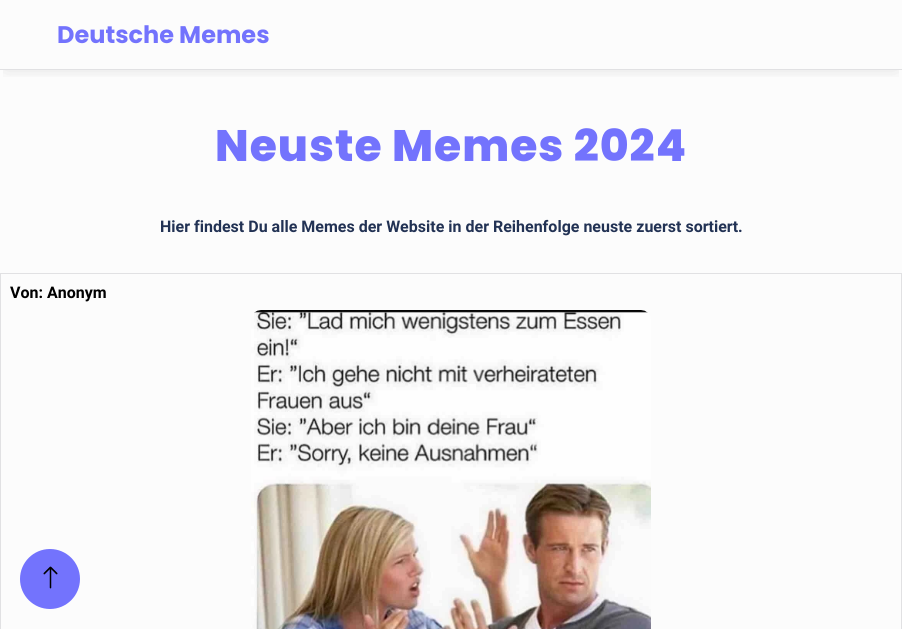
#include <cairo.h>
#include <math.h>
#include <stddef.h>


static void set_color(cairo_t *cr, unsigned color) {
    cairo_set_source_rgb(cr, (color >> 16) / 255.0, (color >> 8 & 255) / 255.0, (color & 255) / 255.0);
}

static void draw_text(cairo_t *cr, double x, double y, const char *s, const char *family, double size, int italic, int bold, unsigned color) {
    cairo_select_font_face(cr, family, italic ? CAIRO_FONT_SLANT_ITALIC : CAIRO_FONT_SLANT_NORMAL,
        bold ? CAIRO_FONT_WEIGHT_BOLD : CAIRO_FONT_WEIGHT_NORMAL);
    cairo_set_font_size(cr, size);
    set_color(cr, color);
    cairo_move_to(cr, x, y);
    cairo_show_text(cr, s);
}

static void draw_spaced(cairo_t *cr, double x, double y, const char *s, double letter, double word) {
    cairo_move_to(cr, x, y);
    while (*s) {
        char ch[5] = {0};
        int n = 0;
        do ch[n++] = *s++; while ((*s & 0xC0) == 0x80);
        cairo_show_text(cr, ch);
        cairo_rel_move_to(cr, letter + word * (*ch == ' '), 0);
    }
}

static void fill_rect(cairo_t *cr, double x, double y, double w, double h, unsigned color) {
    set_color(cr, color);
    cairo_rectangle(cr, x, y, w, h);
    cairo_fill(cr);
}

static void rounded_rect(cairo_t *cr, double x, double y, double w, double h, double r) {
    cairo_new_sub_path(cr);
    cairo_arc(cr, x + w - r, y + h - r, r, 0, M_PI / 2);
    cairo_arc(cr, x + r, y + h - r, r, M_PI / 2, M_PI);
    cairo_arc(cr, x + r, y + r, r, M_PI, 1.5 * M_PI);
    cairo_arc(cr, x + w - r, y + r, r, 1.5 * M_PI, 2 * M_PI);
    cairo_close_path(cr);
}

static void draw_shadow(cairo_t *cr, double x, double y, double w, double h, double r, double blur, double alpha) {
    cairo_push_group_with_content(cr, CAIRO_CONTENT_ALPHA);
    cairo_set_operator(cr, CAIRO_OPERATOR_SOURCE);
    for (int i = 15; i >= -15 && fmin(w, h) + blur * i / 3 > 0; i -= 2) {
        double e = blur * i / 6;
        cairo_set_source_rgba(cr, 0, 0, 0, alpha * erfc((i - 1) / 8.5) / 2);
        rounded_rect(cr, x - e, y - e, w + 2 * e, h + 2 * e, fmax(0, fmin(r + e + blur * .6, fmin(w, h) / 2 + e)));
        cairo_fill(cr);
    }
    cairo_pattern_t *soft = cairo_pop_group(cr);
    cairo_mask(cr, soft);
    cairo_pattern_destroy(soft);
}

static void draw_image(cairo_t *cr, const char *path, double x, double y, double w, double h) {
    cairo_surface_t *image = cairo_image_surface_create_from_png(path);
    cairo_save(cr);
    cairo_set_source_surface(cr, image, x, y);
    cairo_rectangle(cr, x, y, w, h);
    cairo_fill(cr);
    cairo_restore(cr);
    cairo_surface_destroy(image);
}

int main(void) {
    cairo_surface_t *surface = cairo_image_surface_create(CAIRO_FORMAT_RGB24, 902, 629);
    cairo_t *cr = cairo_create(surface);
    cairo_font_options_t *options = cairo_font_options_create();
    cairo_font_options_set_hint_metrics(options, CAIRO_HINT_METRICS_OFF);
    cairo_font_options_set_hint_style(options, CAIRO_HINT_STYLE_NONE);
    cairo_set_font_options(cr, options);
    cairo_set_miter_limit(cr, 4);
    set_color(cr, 0xFCFCFC);
    cairo_paint(cr);
    cairo_save(cr);
    cairo_rectangle(cr, 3, 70, 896, 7);
    cairo_clip(cr);
    set_color(cr, 0x000000);
    draw_shadow(cr, 6, 6, 890, 58, 0, 10, 0.2);
    cairo_restore(cr);
    fill_rect(cr, 0, 69, 902, 1, 0xE1E1E3);
    draw_text(cr, 57, 43, "Deutsche Memes", "Poppins", 24, 0, 1, 0x7373FD);
    cairo_select_font_face(cr, "Poppins ExtraBold", CAIRO_FONT_SLANT_NORMAL, CAIRO_FONT_WEIGHT_NORMAL);
    cairo_set_font_size(cr, 44);
    draw_spaced(cr, 215, 161, "Neuste Memes 2024", 1, 0);
    draw_text(cr, 160, 232, "Hier findest Du alle Memes der Website in der Reihenfolge neuste zuerst sortiert.", "Roboto", 16, 0, 1, 0x223254);
    fill_rect(cr, 0, 273, 902, 1, 0xE1E1E3);
    fill_rect(cr, 901, 273, 1, 356, 0xE1E1E3);
    fill_rect(cr, 0, 273, 1, 356, 0xE1E1E3);
    draw_text(cr, 10, 298, "Von: Anonym", "Roboto", 16, 0, 1, 0x000000);
    draw_image(cr, "assets/img1.png", 251, 310, 400, 319);
    set_color(cr, 0x7373FD);
    cairo_arc(cr, 50, 579, 30, 0, 2 * M_PI);
    cairo_fill(cr);
    draw_image(cr, "assets/img2.png", 43, 566, 15, 23);
    cairo_surface_write_to_png(surface, "output.png");
    cairo_font_options_destroy(options);
    cairo_destroy(cr);
    cairo_surface_destroy(surface);
    return 0;
}
